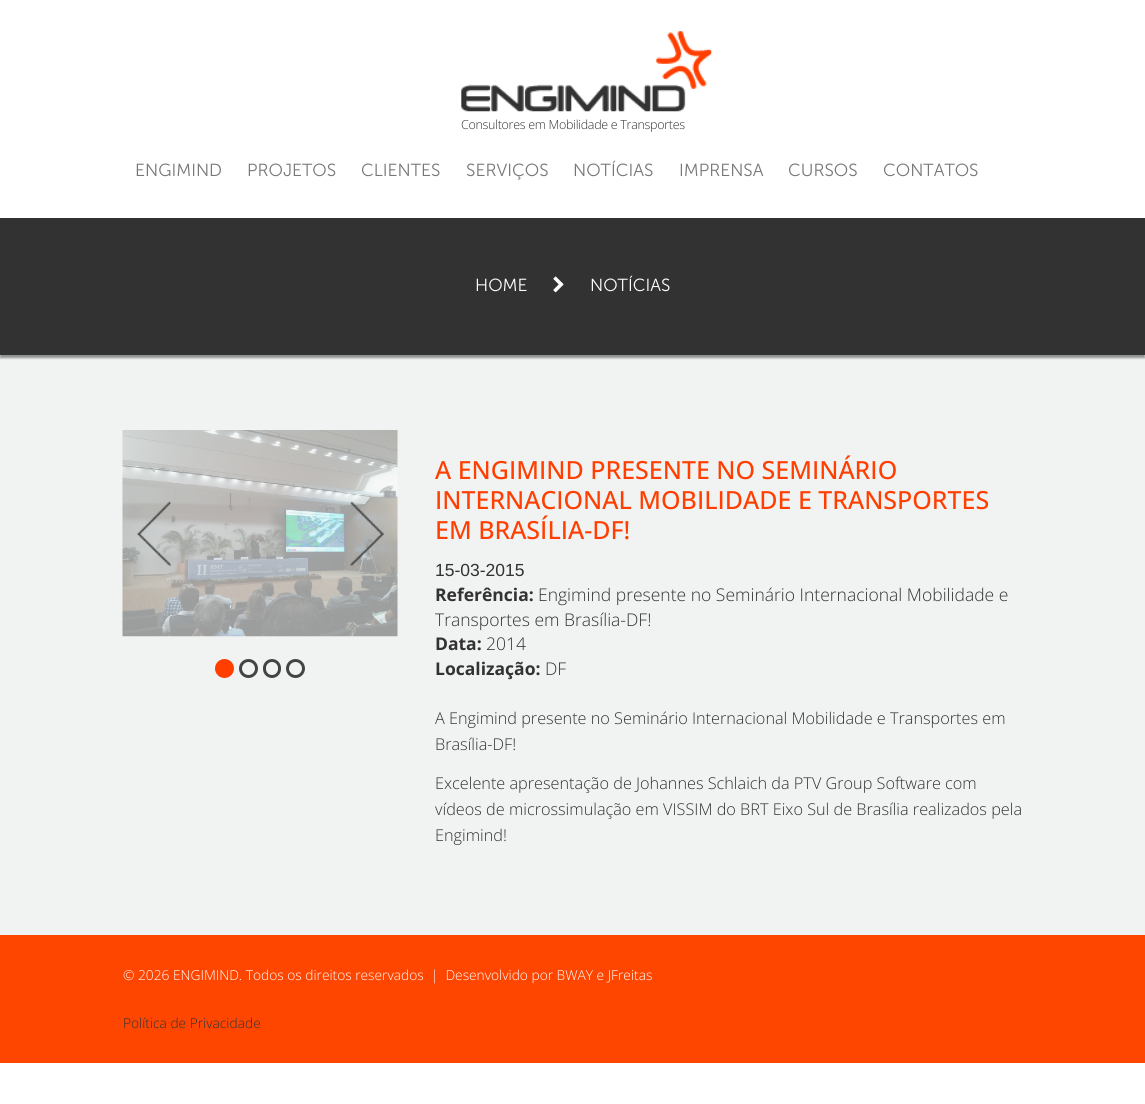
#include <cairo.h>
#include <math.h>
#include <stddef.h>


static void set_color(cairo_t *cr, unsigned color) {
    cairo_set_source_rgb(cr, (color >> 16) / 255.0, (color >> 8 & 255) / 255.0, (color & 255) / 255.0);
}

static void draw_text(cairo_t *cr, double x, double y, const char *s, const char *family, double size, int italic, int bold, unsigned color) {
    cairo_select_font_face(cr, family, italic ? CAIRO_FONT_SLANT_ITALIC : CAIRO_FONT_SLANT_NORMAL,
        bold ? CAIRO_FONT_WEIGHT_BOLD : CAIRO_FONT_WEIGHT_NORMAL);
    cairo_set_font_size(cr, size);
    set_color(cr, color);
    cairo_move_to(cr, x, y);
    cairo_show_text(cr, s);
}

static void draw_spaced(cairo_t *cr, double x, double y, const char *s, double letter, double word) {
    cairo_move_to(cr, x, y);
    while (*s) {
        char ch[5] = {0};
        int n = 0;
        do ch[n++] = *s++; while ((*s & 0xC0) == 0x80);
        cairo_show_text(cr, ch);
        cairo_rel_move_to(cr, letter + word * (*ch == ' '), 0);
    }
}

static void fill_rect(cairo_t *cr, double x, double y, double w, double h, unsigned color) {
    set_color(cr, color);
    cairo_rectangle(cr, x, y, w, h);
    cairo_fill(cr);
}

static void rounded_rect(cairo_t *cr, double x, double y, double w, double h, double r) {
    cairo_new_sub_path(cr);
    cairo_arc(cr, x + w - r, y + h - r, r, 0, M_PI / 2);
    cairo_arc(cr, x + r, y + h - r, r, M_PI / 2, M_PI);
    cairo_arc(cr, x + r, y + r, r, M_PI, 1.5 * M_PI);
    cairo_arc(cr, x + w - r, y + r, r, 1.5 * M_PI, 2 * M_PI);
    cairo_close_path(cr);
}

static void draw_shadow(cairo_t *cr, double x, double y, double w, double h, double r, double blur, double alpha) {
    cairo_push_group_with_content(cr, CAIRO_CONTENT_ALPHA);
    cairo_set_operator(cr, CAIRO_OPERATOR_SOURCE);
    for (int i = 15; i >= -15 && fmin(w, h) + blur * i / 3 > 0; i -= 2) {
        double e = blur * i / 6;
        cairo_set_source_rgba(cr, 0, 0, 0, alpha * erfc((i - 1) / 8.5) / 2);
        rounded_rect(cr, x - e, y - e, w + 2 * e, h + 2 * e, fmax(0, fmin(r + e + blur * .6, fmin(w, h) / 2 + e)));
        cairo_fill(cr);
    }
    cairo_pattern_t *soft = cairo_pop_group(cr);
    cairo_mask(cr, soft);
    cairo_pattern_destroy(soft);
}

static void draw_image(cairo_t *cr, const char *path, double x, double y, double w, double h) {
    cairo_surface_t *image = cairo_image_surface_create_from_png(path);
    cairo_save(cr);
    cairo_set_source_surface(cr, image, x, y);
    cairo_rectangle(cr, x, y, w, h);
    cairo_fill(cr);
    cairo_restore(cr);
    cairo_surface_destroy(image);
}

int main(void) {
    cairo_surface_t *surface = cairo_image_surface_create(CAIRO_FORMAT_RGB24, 1145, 1104);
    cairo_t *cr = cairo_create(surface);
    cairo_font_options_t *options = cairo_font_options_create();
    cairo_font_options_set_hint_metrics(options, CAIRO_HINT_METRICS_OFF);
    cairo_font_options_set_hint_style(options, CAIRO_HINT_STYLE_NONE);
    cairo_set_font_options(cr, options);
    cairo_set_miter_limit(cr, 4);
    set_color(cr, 0xFFFFFF);
    cairo_paint(cr);
    draw_image(cr, "assets/img1.png", 461, 31, 251, 81);
    cairo_select_font_face(cr, "Open Sans Light", CAIRO_FONT_SLANT_NORMAL, CAIRO_FONT_WEIGHT_NORMAL);
    cairo_set_font_size(cr, 12.5);
    set_color(cr, 0x323232);
    draw_spaced(cr, 461, 129, "Consultores em Mobilidade e Transportes", -0.3, 0);
    draw_text(cr, 135, 176, "ENGIMIND", "Museo Sans Light", 17.5, 0, 0, 0x777777);
    draw_text(cr, 247, 176, "PROJETOS", "Museo Sans Light", 17.5, 0, 0, 0x777777);
    draw_text(cr, 361, 176, "CLIENTES", "Museo Sans Light", 17.5, 0, 0, 0x777777);
    draw_text(cr, 466, 176, "SERVIÇOS", "Museo Sans Light", 17.5, 0, 0, 0x777777);
    draw_text(cr, 573, 176, "NOTÍCIAS", "Museo Sans Light", 17.5, 0, 0, 0x777777);
    draw_text(cr, 679, 176, "IMPRENSA", "Museo Sans Light", 17.5, 0, 0, 0x777777);
    draw_text(cr, 788, 176, "CURSOS", "Museo Sans Light", 17.5, 0, 0, 0x777777);
    draw_text(cr, 883, 176, "CONTATOS", "Museo Sans Light", 17.5, 0, 0, 0x777777);
    fill_rect(cr, 0, 355, 1145, 580, 0xF1F2F2);
    set_color(cr, 0x000000);
    draw_shadow(cr, 0, 220, 1145, 138, 0, 1, 0.4);
    fill_rect(cr, 0, 218, 1145, 137, 0x323232);
    draw_text(cr, 475, 291, "HOME", "Museo Sans Light", 17.5, 0, 0, 0xFFFFFF);
    draw_image(cr, "assets/img2.png", 553, 276, 11, 17);
    draw_text(cr, 590, 291, "NOTÍCIAS", "Museo Sans Light", 17.5, 0, 0, 0xFFFFFF);
    draw_image(cr, "assets/img3.png", 122, 430, 276, 207);
    draw_image(cr, "assets/img4.png", 137, 501, 35, 66);
    draw_image(cr, "assets/img5.png", 350, 501, 34, 66);
    set_color(cr, 0xFF3E00);
    cairo_arc(cr, 224.5, 668.5, 9.5, 0, 2 * M_PI);
    cairo_fill(cr);
    cairo_arc(cr, 248.5, 668.5, 8, 0, 2 * M_PI);
    set_color(cr, 0x434343);
    cairo_set_line_width(cr, 3);
    cairo_stroke(cr);
    rounded_rect(cr, 264.5, 660.5, 15, 16, 7.5);
    cairo_stroke(cr);
    cairo_arc(cr, 295.5, 668.5, 8, 0, 2 * M_PI);
    cairo_stroke(cr);
    draw_text(cr, 435, 479, "A ENGIMIND PRESENTE NO SEMINÁRIO", "Open Sans Medium", 25, 0, 0, 0xFF3E00);
    draw_text(cr, 435, 509, "INTERNACIONAL MOBILIDADE E TRANSPORTES", "Open Sans Medium", 25, 0, 0, 0xFF3E00);
    draw_text(cr, 435, 539, "EM BRASÍLIA-DF!", "Open Sans Medium", 25, 0, 0, 0xFF3E00);
    draw_text(cr, 435, 576, "15-03-2015", "Liberation Sans", 17.5, 0, 0, 0x323232);
    draw_text(cr, 435, 601, "Referência:", "Open Sans", 17.5, 0, 1, 0x323232);
    draw_text(cr, 538, 601, "Engimind presente no Seminário Internacional Mobilidade e", "Open Sans Light", 17.5, 0, 0, 0x323232);
    draw_text(cr, 435, 626, "Transportes em Brasília-DF!", "Open Sans Light", 17.5, 0, 0, 0x323232);
    draw_text(cr, 435, 650, "Data:", "Open Sans", 17.5, 0, 1, 0x323232);
    draw_text(cr, 486, 650, "2014", "Open Sans Light", 17.5, 0, 0, 0x323232);
    draw_text(cr, 435, 675, "Localização:", "Open Sans", 17.5, 0, 1, 0x323232);
    draw_text(cr, 545, 675, "DF", "Open Sans Light", 17.5, 0, 0, 0x323232);
    draw_text(cr, 435, 724, "A Engimind presente no Seminário Internacional Mobilidade e Transportes em", "Open Sans Light", 16.25, 0, 0, 0x323232);
    draw_text(cr, 435, 750, "Brasília-DF!", "Open Sans Light", 16.25, 0, 0, 0x323232);
    draw_text(cr, 435, 789, "Excelente apresentação de Johannes Schlaich da PTV Group Software com", "Open Sans Light", 16.25, 0, 0, 0x323232);
    draw_text(cr, 435, 815, "vídeos de microssimulação em VISSIM do BRT Eixo Sul de Brasília realizados pela", "Open Sans Light", 16.25, 0, 0, 0x323232);
    draw_text(cr, 435, 841, "Engimind!", "Open Sans Light", 16.25, 0, 0, 0x323232);
    fill_rect(cr, 0, 935, 1145, 128, 0xFF4600);
    draw_text(cr, 123, 980, "© 2026 ENGIMIND. Todos os direitos reservados  |  Desenvolvido por BWAY e JFreitas", "Open Sans Light", 13.75, 0, 0, 0xFFFFFF);
    draw_text(cr, 123, 1028, "Política de Privacidade", "Open Sans Light", 13.75, 0, 0, 0x323232);
    cairo_surface_write_to_png(surface, "output.png");
    cairo_font_options_destroy(options);
    cairo_destroy(cr);
    cairo_surface_destroy(surface);
    return 0;
}
